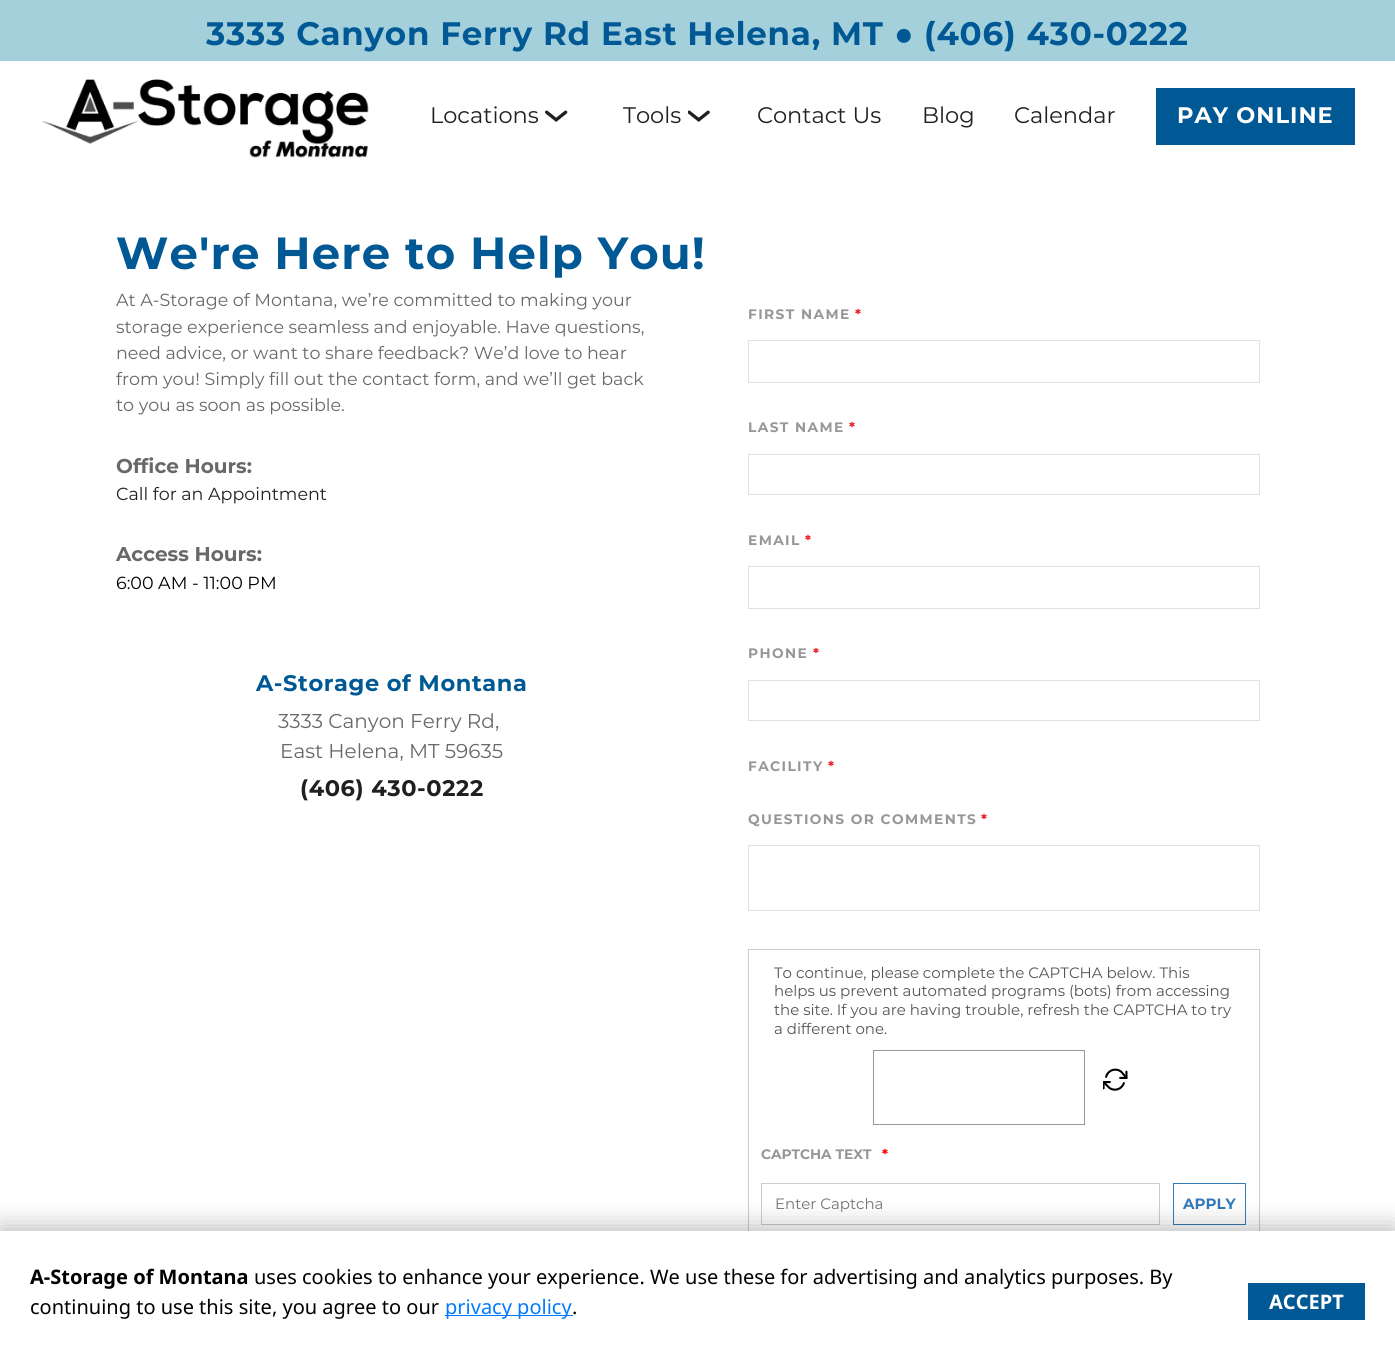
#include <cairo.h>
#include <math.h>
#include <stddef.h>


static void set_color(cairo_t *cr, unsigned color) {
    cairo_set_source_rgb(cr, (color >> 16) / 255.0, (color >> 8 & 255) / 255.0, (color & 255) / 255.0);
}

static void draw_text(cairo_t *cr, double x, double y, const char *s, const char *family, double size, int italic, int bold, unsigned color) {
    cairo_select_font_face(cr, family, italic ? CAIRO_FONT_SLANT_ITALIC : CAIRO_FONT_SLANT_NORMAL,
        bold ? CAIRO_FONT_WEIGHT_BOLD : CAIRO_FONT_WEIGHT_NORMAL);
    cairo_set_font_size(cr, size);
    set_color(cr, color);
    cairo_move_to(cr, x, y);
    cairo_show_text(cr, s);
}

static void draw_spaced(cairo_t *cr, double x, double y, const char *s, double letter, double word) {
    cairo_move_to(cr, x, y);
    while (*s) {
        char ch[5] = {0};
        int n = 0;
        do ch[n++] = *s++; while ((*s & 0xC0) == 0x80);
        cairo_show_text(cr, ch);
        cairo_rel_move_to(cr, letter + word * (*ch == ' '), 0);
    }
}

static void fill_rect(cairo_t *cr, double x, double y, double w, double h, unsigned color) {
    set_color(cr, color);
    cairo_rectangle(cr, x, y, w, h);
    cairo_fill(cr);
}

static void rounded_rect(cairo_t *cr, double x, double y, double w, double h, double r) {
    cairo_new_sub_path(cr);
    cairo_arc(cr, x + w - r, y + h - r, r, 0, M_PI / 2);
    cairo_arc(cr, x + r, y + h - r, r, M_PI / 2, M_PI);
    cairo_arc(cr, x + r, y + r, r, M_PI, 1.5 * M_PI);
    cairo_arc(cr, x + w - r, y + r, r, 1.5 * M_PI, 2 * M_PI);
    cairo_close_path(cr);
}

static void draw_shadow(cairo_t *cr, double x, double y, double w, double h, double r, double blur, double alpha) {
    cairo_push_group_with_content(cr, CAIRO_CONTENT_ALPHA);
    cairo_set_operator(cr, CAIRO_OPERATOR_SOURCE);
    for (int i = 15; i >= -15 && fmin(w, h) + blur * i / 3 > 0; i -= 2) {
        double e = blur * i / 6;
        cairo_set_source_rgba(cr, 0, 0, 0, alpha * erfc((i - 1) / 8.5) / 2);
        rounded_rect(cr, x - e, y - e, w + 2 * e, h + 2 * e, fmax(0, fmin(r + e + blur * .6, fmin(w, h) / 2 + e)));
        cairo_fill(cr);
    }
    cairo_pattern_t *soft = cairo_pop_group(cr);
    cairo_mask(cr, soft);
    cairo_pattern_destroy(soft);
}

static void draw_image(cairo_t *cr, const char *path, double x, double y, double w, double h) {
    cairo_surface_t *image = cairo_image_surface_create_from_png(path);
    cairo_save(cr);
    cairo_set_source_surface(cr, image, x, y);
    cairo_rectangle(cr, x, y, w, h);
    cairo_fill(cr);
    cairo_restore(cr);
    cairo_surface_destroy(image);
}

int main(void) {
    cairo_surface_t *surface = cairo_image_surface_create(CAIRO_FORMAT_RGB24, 1395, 1371);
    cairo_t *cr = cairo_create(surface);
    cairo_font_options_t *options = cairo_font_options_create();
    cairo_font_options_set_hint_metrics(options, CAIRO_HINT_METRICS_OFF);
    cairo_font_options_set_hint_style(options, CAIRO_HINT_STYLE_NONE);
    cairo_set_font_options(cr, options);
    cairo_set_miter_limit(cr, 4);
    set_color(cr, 0xFFFFFF);
    cairo_paint(cr);
    fill_rect(cr, 0, 0, 1395, 61, 0xA4D0DB);
    cairo_select_font_face(cr, "Montserrat", CAIRO_FONT_SLANT_NORMAL, CAIRO_FONT_WEIGHT_BOLD);
    cairo_set_font_size(cr, 32.5);
    set_color(cr, 0x005995);
    draw_spaced(cr, 206, 45, "3333 Canyon Ferry Rd East Helena, MT", 0.8, 0);
    cairo_select_font_face(cr, "Liberation Sans", CAIRO_FONT_SLANT_NORMAL, CAIRO_FONT_WEIGHT_BOLD);
    draw_spaced(cr, 894, 45, "●", 0.8, 0);
    cairo_select_font_face(cr, "Montserrat", CAIRO_FONT_SLANT_NORMAL, CAIRO_FONT_WEIGHT_BOLD);
    draw_spaced(cr, 924, 45, "(406) 430-0222", 0.8, 0);
    draw_image(cr, "assets/img1.png", 42, 79, 327, 79);
    draw_text(cr, 430, 123, "Locations", "Montserrat", 22.5, 0, 0, 0x202020);
    draw_image(cr, "assets/img2.png", 545, 110, 23, 12);
    draw_text(cr, 623, 123, "Tools", "Montserrat", 22.5, 0, 0, 0x202020);
    draw_image(cr, "assets/img3.png", 688, 110, 22, 12);
    draw_text(cr, 757, 123, "Contact Us", "Montserrat", 22.5, 0, 0, 0x202020);
    draw_text(cr, 922, 123, "Blog", "Montserrat", 22.5, 0, 0, 0x202020);
    draw_text(cr, 1014, 123, "Calendar", "Montserrat", 22.5, 0, 0, 0x202020);
    fill_rect(cr, 1156, 88, 199, 57, 0x005995);
    cairo_select_font_face(cr, "Montserrat", CAIRO_FONT_SLANT_NORMAL, CAIRO_FONT_WEIGHT_BOLD);
    set_color(cr, 0xFFFFFF);
    draw_spaced(cr, 1177, 123, "PAY ONLINE", 1, 0);
    cairo_set_font_size(cr, 45);
    set_color(cr, 0x005995);
    draw_spaced(cr, 116, 269, "We're Here to Help You!", 1.1, 0);
    draw_text(cr, 116, 306, "At A-Storage of Montana, we’re committed to making your", "Montserrat", 17.5, 0, 0, 0x686868);
    draw_text(cr, 116, 333, "storage experience seamless and enjoyable. Have questions,", "Montserrat", 17.5, 0, 0, 0x686868);
    draw_text(cr, 116, 359, "need advice, or want to share feedback? We’d love to hear", "Montserrat", 17.5, 0, 0, 0x686868);
    draw_text(cr, 116, 385, "from you! Simply fill out the contact form, and we’ll get back", "Montserrat", 17.5, 0, 0, 0x686868);
    draw_text(cr, 116, 411, "to you as soon as possible.", "Montserrat", 17.5, 0, 0, 0x686868);
    draw_text(cr, 116, 473, "Office Hours:", "Montserrat", 20, 0, 1, 0x686868);
    draw_text(cr, 116, 500, "Call for an Appointment", "Montserrat", 17.5, 0, 0, 0x202020);
    draw_text(cr, 116, 561, "Access Hours:", "Montserrat", 20, 0, 1, 0x686868);
    draw_text(cr, 116, 589, "6:00 AM - 11:00 PM", "Montserrat", 17.5, 0, 0, 0x000000);
    cairo_select_font_face(cr, "Montserrat", CAIRO_FONT_SLANT_NORMAL, CAIRO_FONT_WEIGHT_BOLD);
    cairo_set_font_size(cr, 22.5);
    set_color(cr, 0x005995);
    draw_spaced(cr, 256, 691, "A-Storage of Montana", 0.6, 0);
    draw_text(cr, 278, 728, "3333 Canyon Ferry Rd,", "Montserrat", 20, 0, 0, 0x686868);
    draw_text(cr, 280, 758, "East Helena, MT 59635", "Montserrat", 20, 0, 0, 0x686868);
    cairo_select_font_face(cr, "Montserrat", CAIRO_FONT_SLANT_NORMAL, CAIRO_FONT_WEIGHT_BOLD);
    cairo_set_font_size(cr, 22.5);
    set_color(cr, 0x202020);
    draw_spaced(cr, 300, 796, "(406) 430-0222", 0.6, 0);
    cairo_set_font_size(cr, 13.75);
    set_color(cr, 0x979797);
    draw_spaced(cr, 748, 319, "FIRST NAME", 1.4, 0);
    set_color(cr, 0xED1C24);
    draw_spaced(cr, 855, 319, "*", 1.4, 0);
    cairo_rectangle(cr, 748.5, 340.5, 511, 42);
    set_color(cr, 0xDEE2E6);
    cairo_set_line_width(cr, 1);
    cairo_stroke(cr);
    set_color(cr, 0x979797);
    draw_spaced(cr, 748, 432, "LAST NAME", 1.4, 0);
    set_color(cr, 0xED1C24);
    draw_spaced(cr, 849, 432, "*", 1.4, 0);
    cairo_rectangle(cr, 748.5, 454.5, 511, 40);
    set_color(cr, 0xDEE2E6);
    cairo_stroke(cr);
    set_color(cr, 0x979797);
    draw_spaced(cr, 748, 545, "EMAIL", 1.4, 0);
    set_color(cr, 0xED1C24);
    draw_spaced(cr, 805, 545, "*", 1.4, 0);
    cairo_rectangle(cr, 748.5, 566.5, 511, 42);
    set_color(cr, 0xDEE2E6);
    cairo_stroke(cr);
    set_color(cr, 0x979797);
    draw_spaced(cr, 748, 658, "PHONE", 1.4, 0);
    set_color(cr, 0xED1C24);
    draw_spaced(cr, 813, 658, "*", 1.4, 0);
    cairo_rectangle(cr, 748.5, 680.5, 511, 40);
    set_color(cr, 0xDEE2E6);
    cairo_stroke(cr);
    set_color(cr, 0x979797);
    draw_spaced(cr, 748, 771, "FACILITY", 1.4, 0);
    set_color(cr, 0xED1C24);
    draw_spaced(cr, 828, 771, "*", 1.4, 0);
    set_color(cr, 0x979797);
    draw_spaced(cr, 748, 824, "QUESTIONS OR COMMENTS", 1.4, 0);
    set_color(cr, 0xED1C24);
    draw_spaced(cr, 981, 824, "*", 1.4, 0);
    cairo_rectangle(cr, 748.5, 845.5, 511, 65);
    set_color(cr, 0xDEE2E6);
    cairo_stroke(cr);
    cairo_rectangle(cr, 748.5, 949.5, 511, 289);
    set_color(cr, 0xCCCCCC);
    cairo_stroke(cr);
    draw_text(cr, 774, 978, "To continue, please complete the CAPTCHA below. This", "Montserrat", 15, 0, 0, 0x555555);
    draw_text(cr, 774, 996, "helps us prevent automated programs (bots) from accessing", "Montserrat", 15, 0, 0, 0x555555);
    draw_text(cr, 774, 1015, "the site. If you are having trouble, refresh the CAPTCHA to try", "Montserrat", 15, 0, 0, 0x555555);
    draw_text(cr, 774, 1034, "a different one.", "Montserrat", 15, 0, 0, 0x555555);
    cairo_rectangle(cr, 873.5, 1050.5, 211, 74);
    set_color(cr, 0x979797);
    cairo_stroke(cr);
    draw_image(cr, "assets/img4.png", 1103, 1068, 25, 23);
    draw_text(cr, 761, 1159, "CAPTCHA TEXT", "Montserrat", 13.75, 0, 1, 0x979797);
    draw_text(cr, 882, 1159, "*", "Montserrat", 13.75, 0, 1, 0xFF0000);
    cairo_rectangle(cr, 761.5, 1183.5, 398, 41);
    set_color(cr, 0xCCCCCC);
    cairo_stroke(cr);
    draw_text(cr, 775, 1209, "Enter Captcha", "Montserrat", 15, 0, 0, 0x757575);
    cairo_rectangle(cr, 1173.5, 1183.5, 72, 41);
    set_color(cr, 0x337AB7);
    cairo_stroke(cr);
    draw_text(cr, 1183, 1209, "APPLY", "Montserrat", 15, 0, 1, 0x337AB7);
    set_color(cr, 0x000000);
    draw_shadow(cr, 0, 1226, 1395, 140, 0, 12.5, 0.25);
    fill_rect(cr, 0, 1231, 1395, 140, 0xFFFFFF);
    draw_text(cr, 30, 1284, "A-Storage of Montana", "Noto Sans", 20, 0, 1, 0x000000);
    draw_text(cr, 254, 1284, "uses cookies to enhance your experience. We use these for advertising and analytics purposes. By", "Noto Sans", 20, 0, 0, 0x000000);
    draw_text(cr, 30, 1314, "continuing to use this site, you agree to our", "Noto Sans", 20, 0, 0, 0x000000);
    fill_rect(cr, 445, 1315, 128, 1, 0x007BFF);
    draw_text(cr, 445, 1314, "privacy policy", "Noto Sans", 20, 0, 0, 0x007BFF);
    draw_text(cr, 572, 1314, ".", "Noto Sans", 20, 0, 0, 0x000000);
    fill_rect(cr, 1248, 1283, 117, 37, 0x005995);
    draw_text(cr, 1269, 1309, "ACCEPT", "Noto Sans", 20, 0, 1, 0xFFFFFF);
    cairo_surface_write_to_png(surface, "output.png");
    cairo_font_options_destroy(options);
    cairo_destroy(cr);
    cairo_surface_destroy(surface);
    return 0;
}
